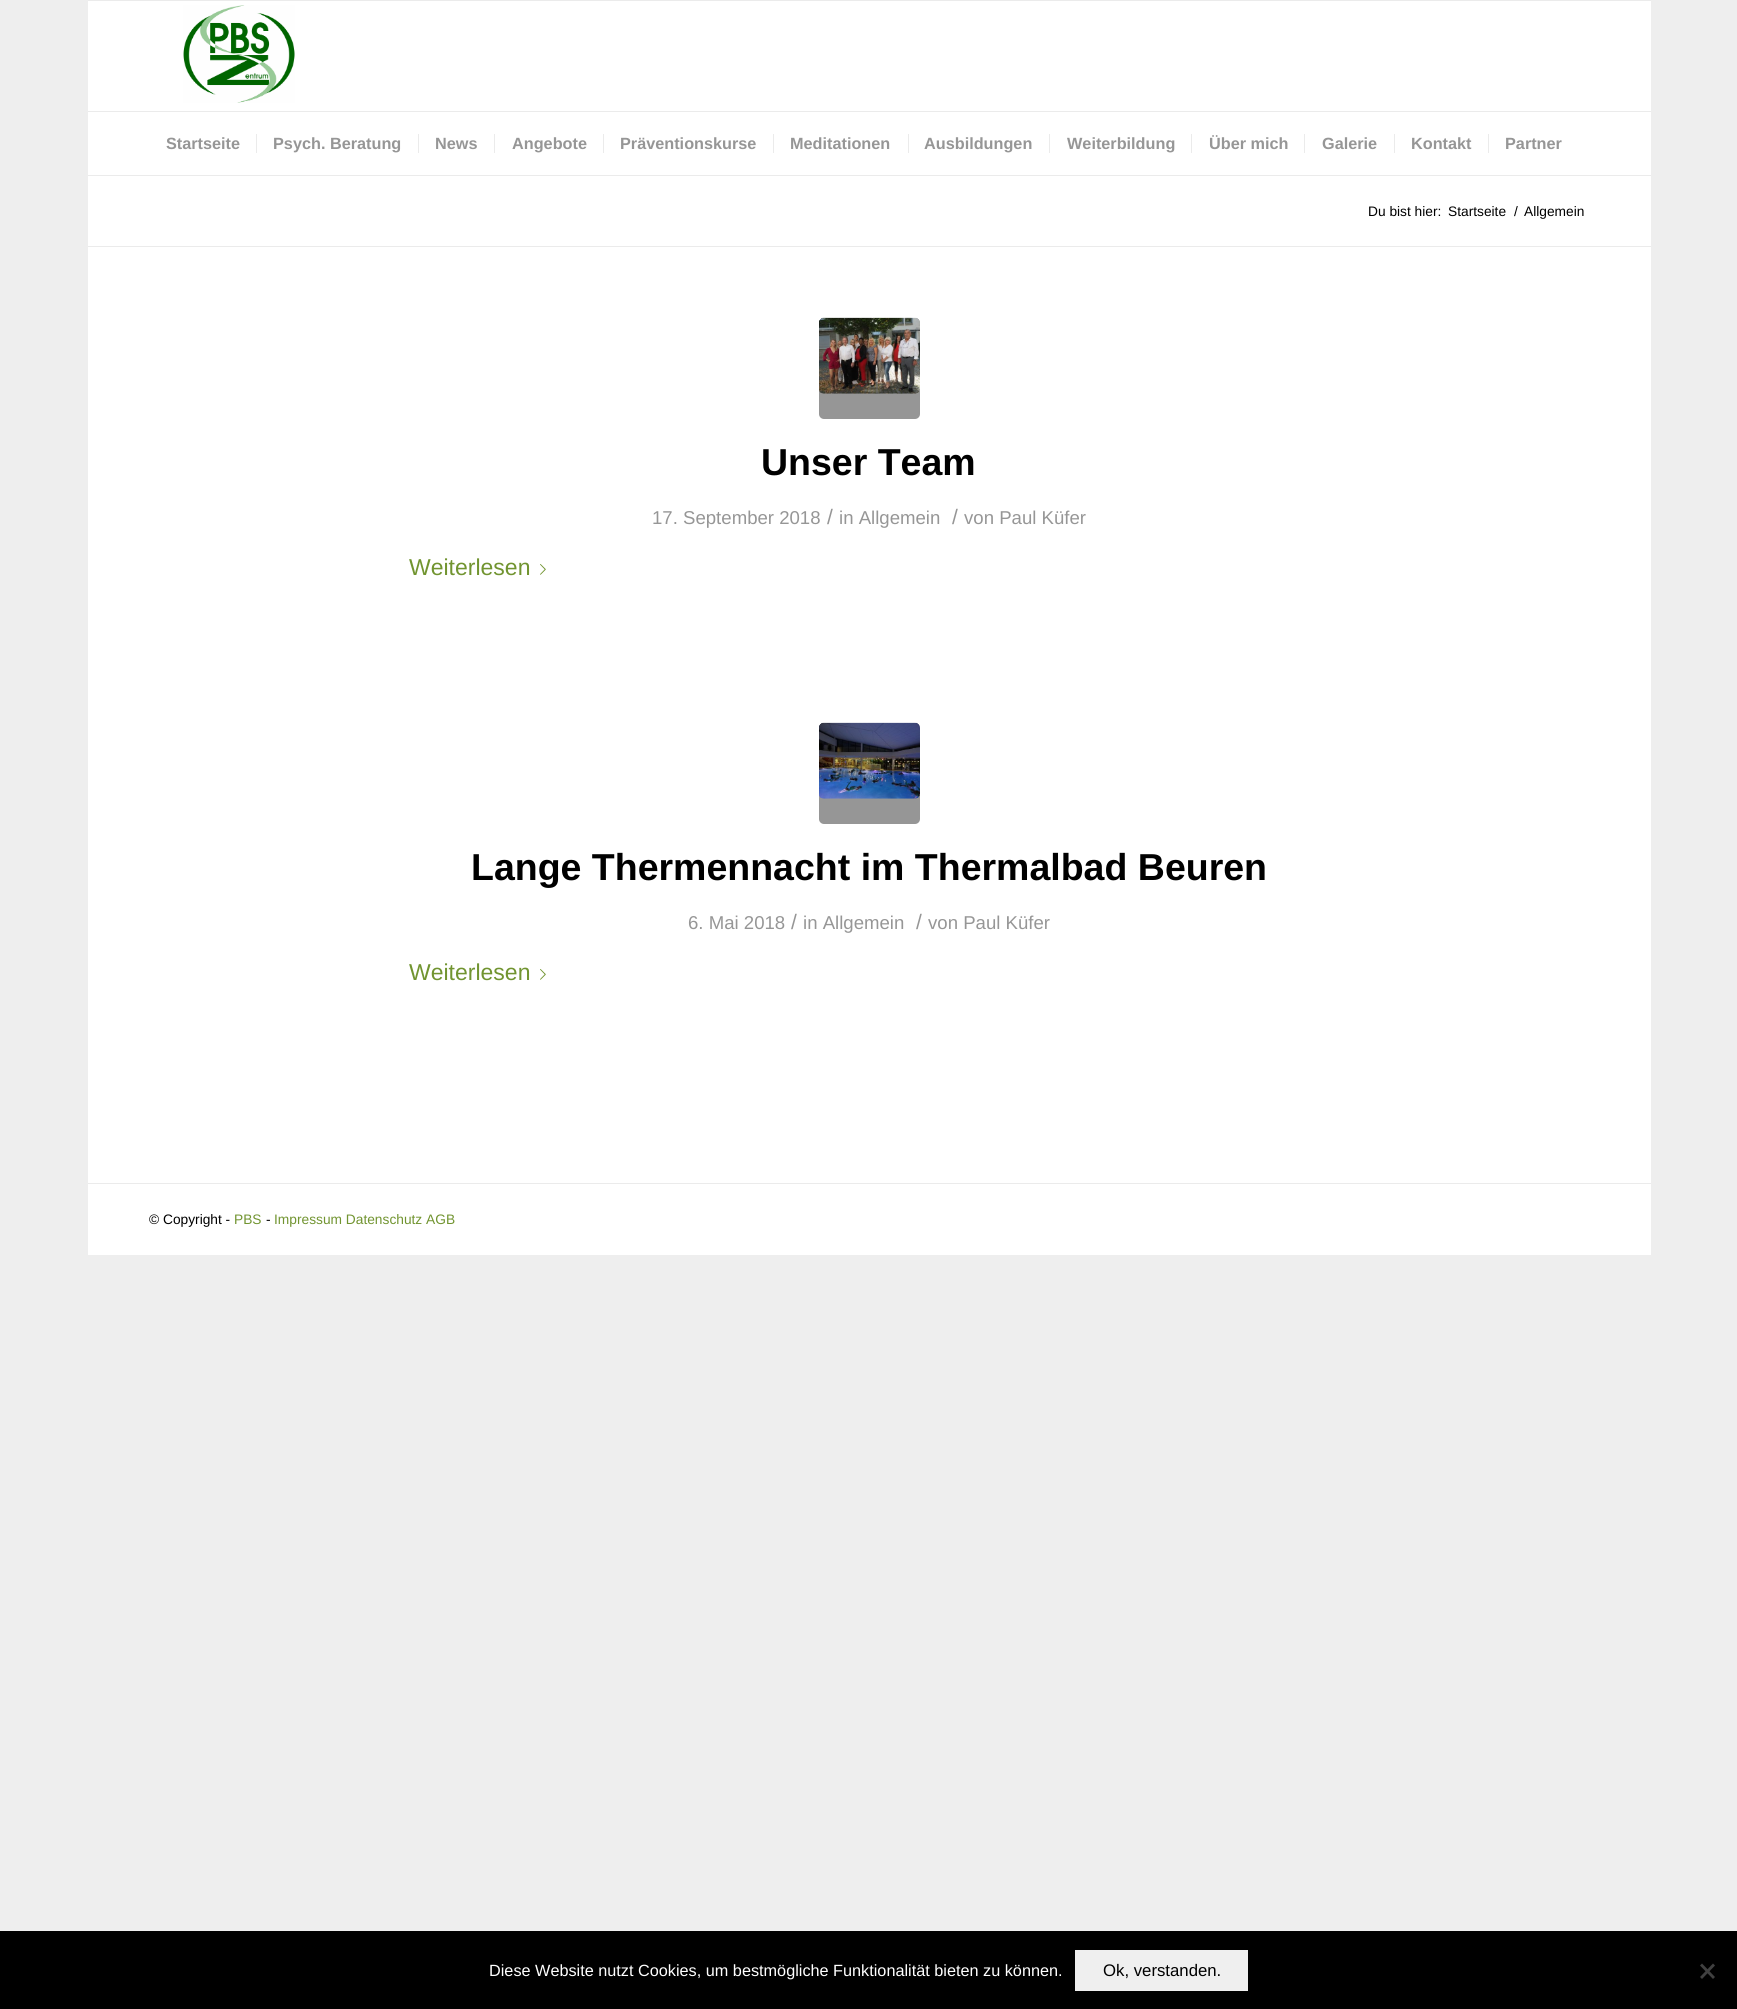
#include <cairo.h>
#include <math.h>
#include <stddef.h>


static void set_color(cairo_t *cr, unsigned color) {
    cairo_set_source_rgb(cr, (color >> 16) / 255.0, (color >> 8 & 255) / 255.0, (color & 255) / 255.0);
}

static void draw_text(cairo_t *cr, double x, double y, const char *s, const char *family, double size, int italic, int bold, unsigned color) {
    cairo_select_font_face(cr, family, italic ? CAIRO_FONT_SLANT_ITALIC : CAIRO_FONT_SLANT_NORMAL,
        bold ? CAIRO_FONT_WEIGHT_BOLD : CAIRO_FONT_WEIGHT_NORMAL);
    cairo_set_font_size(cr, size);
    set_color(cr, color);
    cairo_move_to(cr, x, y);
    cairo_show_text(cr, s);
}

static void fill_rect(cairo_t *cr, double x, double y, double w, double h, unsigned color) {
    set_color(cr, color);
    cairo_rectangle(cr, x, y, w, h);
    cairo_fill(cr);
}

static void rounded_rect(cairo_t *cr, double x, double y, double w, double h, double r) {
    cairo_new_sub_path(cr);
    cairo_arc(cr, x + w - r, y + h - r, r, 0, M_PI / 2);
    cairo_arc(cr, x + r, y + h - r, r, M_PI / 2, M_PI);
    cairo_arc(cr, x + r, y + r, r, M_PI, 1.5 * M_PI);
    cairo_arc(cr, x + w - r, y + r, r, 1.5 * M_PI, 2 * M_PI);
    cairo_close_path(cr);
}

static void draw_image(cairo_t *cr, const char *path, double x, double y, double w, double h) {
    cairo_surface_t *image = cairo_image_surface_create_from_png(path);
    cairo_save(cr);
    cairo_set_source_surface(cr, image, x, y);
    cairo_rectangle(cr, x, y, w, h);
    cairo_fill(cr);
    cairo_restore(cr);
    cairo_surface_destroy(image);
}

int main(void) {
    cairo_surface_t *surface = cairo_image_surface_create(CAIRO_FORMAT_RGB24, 1737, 2009);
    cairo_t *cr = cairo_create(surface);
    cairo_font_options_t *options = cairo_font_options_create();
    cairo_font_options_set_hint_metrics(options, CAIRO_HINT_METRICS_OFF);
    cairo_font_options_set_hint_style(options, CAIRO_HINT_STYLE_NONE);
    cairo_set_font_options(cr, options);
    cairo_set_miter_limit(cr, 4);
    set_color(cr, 0xEEEEEE);
    cairo_paint(cr);
    fill_rect(cr, 88, 0, 1563, 1, 0xEBEBEB);
    fill_rect(cr, 88, 175, 1563, 1, 0xEBEBEB);
    fill_rect(cr, 88, 1, 1563, 174, 0xFFFFFF);
    draw_image(cr, "assets/img1.png", 183, 5, 112, 98);
    fill_rect(cr, 88, 111, 1563, 1, 0xEBEBEB);
    draw_text(cr, 166, 149, "Startseite", "Liberation Sans", 16.25, 0, 1, 0x969696);
    draw_text(cr, 273, 149, "Psych. Beratung", "Liberation Sans", 16.25, 0, 1, 0x969696);
    fill_rect(cr, 256, 134, 1, 19, 0xEBEBEB);
    draw_text(cr, 435, 149, "News", "Liberation Sans", 16.25, 0, 1, 0x969696);
    fill_rect(cr, 418, 134, 1, 19, 0xEBEBEB);
    draw_text(cr, 512, 149, "Angebote", "Liberation Sans", 16.25, 0, 1, 0x969696);
    fill_rect(cr, 494, 134, 1, 19, 0xEBEBEB);
    draw_text(cr, 620, 149, "Präventionskurse", "Liberation Sans", 16.25, 0, 1, 0x969696);
    fill_rect(cr, 603, 134, 1, 19, 0xEBEBEB);
    draw_text(cr, 790, 149, "Meditationen", "Liberation Sans", 16.25, 0, 1, 0x969696);
    fill_rect(cr, 773, 134, 1, 19, 0xEBEBEB);
    draw_text(cr, 924, 149, "Ausbildungen", "Liberation Sans", 16.25, 0, 1, 0x969696);
    fill_rect(cr, 908, 134, 1, 19, 0xEBEBEB);
    draw_text(cr, 1067, 149, "Weiterbildung", "Liberation Sans", 16.25, 0, 1, 0x969696);
    fill_rect(cr, 1049, 134, 1, 19, 0xEBEBEB);
    draw_text(cr, 1209, 149, "Über mich", "Liberation Sans", 16.25, 0, 1, 0x969696);
    fill_rect(cr, 1191, 134, 1, 19, 0xEBEBEB);
    draw_text(cr, 1322, 149, "Galerie", "Liberation Sans", 16.25, 0, 1, 0x969696);
    fill_rect(cr, 1304, 134, 1, 19, 0xEBEBEB);
    draw_text(cr, 1411, 149, "Kontakt", "Liberation Sans", 16.25, 0, 1, 0x969696);
    fill_rect(cr, 1394, 134, 1, 19, 0xEBEBEB);
    draw_text(cr, 1505, 149, "Partner", "Liberation Sans", 16.25, 0, 1, 0x969696);
    fill_rect(cr, 1488, 134, 1, 19, 0xEBEBEB);
    fill_rect(cr, 88, 176, 1563, 1079, 0xFFFFFF);
    draw_text(cr, 1368, 216, "Du bist hier:", "Liberation Sans", 13.75, 0, 0, 0x000000);
    draw_text(cr, 1448, 216, "Startseite", "Liberation Sans", 13.75, 0, 0, 0x000000);
    draw_text(cr, 1514, 216, "/", "Liberation Sans", 13.75, 0, 0, 0x000000);
    draw_text(cr, 1524, 216, "Allgemein", "Liberation Sans", 13.75, 0, 0, 0x000000);
    fill_rect(cr, 88, 246, 1563, 1, 0xEBEBEB);
    set_color(cr, 0x969696);
    rounded_rect(cr, 819, 318, 101, 101, 5);
    cairo_fill(cr);
    draw_image(cr, "assets/img2.png", 819, 317, 101, 77);
    draw_text(cr, 761, 475, "Unser Team", "Liberation Sans", 37.5, 0, 1, 0x000000);
    draw_text(cr, 652, 524, "17. September 2018", "Liberation Sans", 18.6, 0, 0, 0x969696);
    draw_text(cr, 827, 524, "/", "Liberation Sans", 21, 0, 0, 0x969696);
    draw_text(cr, 839, 524, "in Allgemein", "Liberation Sans", 18.6, 0, 0, 0x969696);
    draw_text(cr, 952, 524, "/", "Liberation Sans", 21, 0, 0, 0x969696);
    draw_text(cr, 964, 524, "von Paul Küfer", "Liberation Sans", 18.6, 0, 0, 0x969696);
    draw_text(cr, 409, 575, "Weiterlesen", "Liberation Sans", 23, 0, 0, 0x719430);
    draw_image(cr, "assets/img3.png", 540, 564, 6, 11);
    set_color(cr, 0x969696);
    rounded_rect(cr, 819, 723, 101, 101, 5);
    cairo_fill(cr);
    draw_image(cr, "assets/img4.png", 819, 722, 101, 77);
    draw_text(cr, 471, 880, "Lange Thermennacht im Thermalbad Beuren", "Liberation Sans", 37.5, 0, 1, 0x000000);
    draw_text(cr, 688, 929, "6. Mai 2018", "Liberation Sans", 18.6, 0, 0, 0x969696);
    draw_text(cr, 791, 929, "/", "Liberation Sans", 21, 0, 0, 0x969696);
    draw_text(cr, 803, 929, "in Allgemein", "Liberation Sans", 18.6, 0, 0, 0x969696);
    draw_text(cr, 916, 929, "/", "Liberation Sans", 21, 0, 0, 0x969696);
    draw_text(cr, 928, 929, "von Paul Küfer", "Liberation Sans", 18.6, 0, 0, 0x969696);
    draw_text(cr, 409, 980, "Weiterlesen", "Liberation Sans", 23, 0, 0, 0x719430);
    draw_image(cr, "assets/img3.png", 540, 969, 6, 11);
    fill_rect(cr, 88, 1183, 1563, 1, 0xEBEBEB);
    draw_text(cr, 149, 1224, "© Copyright -", "Liberation Sans", 13.75, 0, 0, 0x000000);
    draw_text(cr, 234, 1224, "PBS", "Liberation Sans", 13.75, 0, 0, 0x719430);
    draw_text(cr, 266, 1224, "-", "Liberation Sans", 13.75, 0, 0, 0x000000);
    draw_text(cr, 274, 1224, "Impressum Datenschutz AGB", "Liberation Sans", 13.75, 0, 0, 0x719430);
    fill_rect(cr, 0, 1931, 1737, 78, 0x000000);
    draw_text(cr, 489, 1976, "Diese Website nutzt Cookies, um bestmögliche Funktionalität bieten zu können.", "Liberation Sans", 16.25, 0, 0, 0xFFFFFF);
    fill_rect(cr, 1075, 1950, 173, 41, 0xEFEFEF);
    draw_text(cr, 1103, 1976, "Ok, verstanden.", "Liberation Sans", 16.75, 0, 0, 0x000000);
    set_color(cr, 0x404040);
    cairo_new_path(cr);
    cairo_move_to(cr, 1713, 1963.5);
    cairo_line_to(cr, 1715, 1965.5);
    cairo_line_to(cr, 1702, 1979);
    cairo_line_to(cr, 1700, 1977);
    cairo_close_path(cr);
    cairo_fill(cr);
    cairo_new_path(cr);
    cairo_move_to(cr, 1700, 1965.5);
    cairo_line_to(cr, 1702, 1963.5);
    cairo_line_to(cr, 1715, 1977);
    cairo_line_to(cr, 1713, 1979);
    cairo_close_path(cr);
    cairo_fill(cr);
    cairo_surface_write_to_png(surface, "output.png");
    cairo_font_options_destroy(options);
    cairo_destroy(cr);
    cairo_surface_destroy(surface);
    return 0;
}
